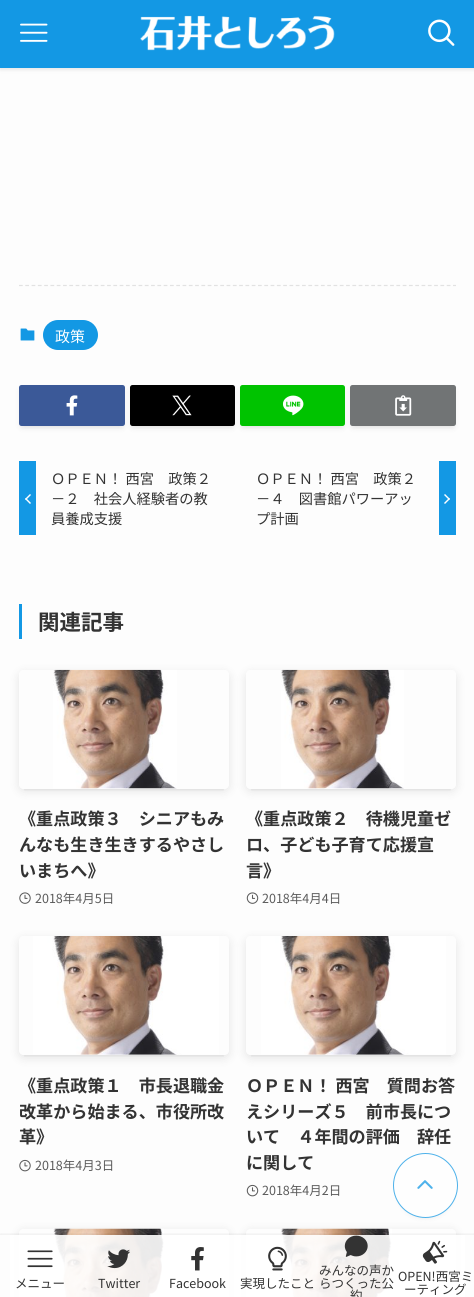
#include <cairo.h>
#include <math.h>
#include <stddef.h>


static void set_color(cairo_t *cr, unsigned color) {
    cairo_set_source_rgb(cr, (color >> 16) / 255.0, (color >> 8 & 255) / 255.0, (color & 255) / 255.0);
}

static void draw_text(cairo_t *cr, double x, double y, const char *s, const char *family, double size, int italic, int bold, unsigned color) {
    cairo_select_font_face(cr, family, italic ? CAIRO_FONT_SLANT_ITALIC : CAIRO_FONT_SLANT_NORMAL,
        bold ? CAIRO_FONT_WEIGHT_BOLD : CAIRO_FONT_WEIGHT_NORMAL);
    cairo_set_font_size(cr, size);
    set_color(cr, color);
    cairo_move_to(cr, x, y);
    cairo_show_text(cr, s);
}

static void fill_rect(cairo_t *cr, double x, double y, double w, double h, unsigned color) {
    set_color(cr, color);
    cairo_rectangle(cr, x, y, w, h);
    cairo_fill(cr);
}

static void rounded_rect(cairo_t *cr, double x, double y, double w, double h, double r) {
    cairo_new_sub_path(cr);
    cairo_arc(cr, x + w - r, y + h - r, r, 0, M_PI / 2);
    cairo_arc(cr, x + r, y + h - r, r, M_PI / 2, M_PI);
    cairo_arc(cr, x + r, y + r, r, M_PI, 1.5 * M_PI);
    cairo_arc(cr, x + w - r, y + r, r, 1.5 * M_PI, 2 * M_PI);
    cairo_close_path(cr);
}

static void draw_shadow(cairo_t *cr, double x, double y, double w, double h, double r, double blur, double alpha) {
    cairo_push_group_with_content(cr, CAIRO_CONTENT_ALPHA);
    cairo_set_operator(cr, CAIRO_OPERATOR_SOURCE);
    for (int i = 15; i >= -15 && fmin(w, h) + blur * i / 3 > 0; i -= 2) {
        double e = blur * i / 6;
        cairo_set_source_rgba(cr, 0, 0, 0, alpha * erfc((i - 1) / 8.5) / 2);
        rounded_rect(cr, x - e, y - e, w + 2 * e, h + 2 * e, fmax(0, fmin(r + e + blur * .6, fmin(w, h) / 2 + e)));
        cairo_fill(cr);
    }
    cairo_pattern_t *soft = cairo_pop_group(cr);
    cairo_mask(cr, soft);
    cairo_pattern_destroy(soft);
}

static void draw_image(cairo_t *cr, const char *path, double x, double y, double w, double h) {
    cairo_surface_t *image = cairo_image_surface_create_from_png(path);
    cairo_save(cr);
    cairo_set_source_surface(cr, image, x, y);
    cairo_rectangle(cr, x, y, w, h);
    cairo_fill(cr);
    cairo_restore(cr);
    cairo_surface_destroy(image);
}

int main(void) {
    cairo_surface_t *surface = cairo_image_surface_create(CAIRO_FORMAT_RGB24, 474, 1297);
    cairo_t *cr = cairo_create(surface);
    cairo_font_options_t *options = cairo_font_options_create();
    cairo_font_options_set_hint_metrics(options, CAIRO_HINT_METRICS_OFF);
    cairo_font_options_set_hint_style(options, CAIRO_HINT_STYLE_NONE);
    cairo_set_font_options(cr, options);
    cairo_set_miter_limit(cr, 4);
    set_color(cr, 0xFDFDFD);
    cairo_paint(cr);
    set_color(cr, 0x000000);
    draw_shadow(cr, 0, 1, 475, 68, 0, 2.5, 0.12);
    fill_rect(cr, 0, 0, 474, 68, 0x1398E4);
    draw_image(cr, "assets/img1.png", 20, 23, 28, 19);
    draw_image(cr, "assets/img2.png", 140, 15, 195, 36);
    draw_image(cr, "assets/img3.png", 428, 19, 27, 27);
    cairo_new_path(cr);
    cairo_move_to(cr, 19, 285.5);
    cairo_line_to(cr, 456, 285.5);
    set_color(cr, 0xE2E2E2);
    cairo_set_line_width(cr, 1.2);
    cairo_set_dash(cr, (double[]){3.75, 2.54}, 2, 0);
    cairo_stroke(cr);
    draw_image(cr, "assets/img4.png", 20, 328, 15, 13);
    set_color(cr, 0x1398E4);
    rounded_rect(cr, 43, 320, 55, 30, 15);
    cairo_fill(cr);
    draw_text(cr, 55, 342, "政策", "Noto Sans JP", 15, 0, 0, 0xFFFFFF);
    set_color(cr, 0x000000);
    draw_shadow(cr, 24, 395, 96, 31, 0, 2.5, 0.1);
    draw_shadow(cr, 19, 388, 106, 41, 2.5, 2.5, 0.05);
    set_color(cr, 0x3B5998);
    rounded_rect(cr, 19, 385, 106, 41, 2.5);
    cairo_fill(cr);
    draw_image(cr, "assets/img5.png", 66, 395, 12, 21);
    set_color(cr, 0x000000);
    draw_shadow(cr, 135, 395, 95, 31, 0, 2.5, 0.1);
    draw_shadow(cr, 130, 388, 105, 41, 2.5, 2.5, 0.05);
    set_color(cr, 0x000000);
    rounded_rect(cr, 130, 385, 105, 41, 2.5);
    cairo_fill(cr);
    draw_image(cr, "assets/img6.png", 172, 395, 20, 21);
    set_color(cr, 0x000000);
    draw_shadow(cr, 245, 395, 95, 31, 0, 2.5, 0.1);
    draw_shadow(cr, 240, 388, 105, 41, 2.5, 2.5, 0.05);
    set_color(cr, 0x00C300);
    rounded_rect(cr, 240, 385, 105, 41, 2.5);
    cairo_fill(cr);
    draw_image(cr, "assets/img7.png", 283, 395, 21, 21);
    set_color(cr, 0x000000);
    draw_shadow(cr, 355, 395, 96, 31, 0, 2.5, 0.1);
    draw_shadow(cr, 350, 388, 106, 41, 2.5, 2.5, 0.05);
    set_color(cr, 0x717475);
    rounded_rect(cr, 350, 385, 106, 41, 2.5);
    cairo_fill(cr);
    draw_image(cr, "assets/img8.png", 395, 395, 17, 21);
    fill_rect(cr, 19, 461, 17, 74, 0x1398E4);
    set_color(cr, 0xFFFFFF);
    cairo_new_path(cr);
    cairo_move_to(cr, 26, 498);
    cairo_line_to(cr, 31, 503);
    cairo_line_to(cr, 30, 504);
    cairo_line_to(cr, 25, 499);
    cairo_close_path(cr);
    cairo_fill(cr);
    cairo_new_path(cr);
    cairo_move_to(cr, 30, 494);
    cairo_line_to(cr, 31, 495);
    cairo_line_to(cr, 26, 500);
    cairo_line_to(cr, 25, 499);
    cairo_close_path(cr);
    cairo_fill(cr);
    draw_text(cr, 51, 484, "ＯＰＥＮ！ 西宮　政策２", "Noto Sans JP", 14.25, 0, 0, 0x333333);
    draw_text(cr, 51, 504, "－２　社会人経験者の教", "Noto Sans JP", 14.25, 0, 0, 0x333333);
    draw_text(cr, 51, 524, "員養成支援", "Noto Sans JP", 14.25, 0, 0, 0x333333);
    fill_rect(cr, 439, 461, 17, 74, 0x1398E4);
    draw_text(cr, 256, 484, "ＯＰＥＮ！ 西宮　政策２", "Noto Sans JP", 14.25, 0, 0, 0x333333);
    draw_text(cr, 256, 504, "－４　図書館パワーアッ", "Noto Sans JP", 14.25, 0, 0, 0x333333);
    draw_text(cr, 256, 524, "プ計画", "Noto Sans JP", 14.25, 0, 0, 0x333333);
    set_color(cr, 0xFFFFFF);
    cairo_new_path(cr);
    cairo_move_to(cr, 444, 495);
    cairo_line_to(cr, 445, 494);
    cairo_line_to(cr, 450, 499);
    cairo_line_to(cr, 449, 500);
    cairo_close_path(cr);
    cairo_fill(cr);
    cairo_new_path(cr);
    cairo_move_to(cr, 444, 503);
    cairo_line_to(cr, 449, 498);
    cairo_line_to(cr, 450, 499);
    cairo_line_to(cr, 445, 504);
    cairo_close_path(cr);
    cairo_fill(cr);
    fill_rect(cr, 19, 604, 3, 35, 0x1398E4);
    draw_text(cr, 38, 630, "関連記事", "Noto Sans JP", 21.5, 0, 1, 0x333333);
    cairo_save(cr);
    cairo_rectangle(cr, 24, 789, 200, 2);
    cairo_clip(cr);
    set_color(cr, 0x000000);
    draw_shadow(cr, 24, 680, 200, 109, 0, 2.5, 0.1);
    cairo_restore(cr);
    cairo_save(cr);
    cairo_set_fill_rule(cr, CAIRO_FILL_RULE_EVEN_ODD);
    cairo_new_path(cr);
    cairo_move_to(cr, 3, 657);
    cairo_line_to(cr, 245, 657);
    cairo_line_to(cr, 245, 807);
    cairo_line_to(cr, 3, 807);
    cairo_close_path(cr);
    cairo_move_to(cr, 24, 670);
    cairo_line_to(cr, 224, 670);
    cairo_curve_to(cr, 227, 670, 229, 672, 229, 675);
    cairo_line_to(cr, 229, 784);
    cairo_curve_to(cr, 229, 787, 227, 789, 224, 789);
    cairo_line_to(cr, 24, 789);
    cairo_curve_to(cr, 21, 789, 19, 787, 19, 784);
    cairo_line_to(cr, 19, 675);
    cairo_curve_to(cr, 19, 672, 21, 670, 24, 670);
    cairo_close_path(cr);
    cairo_clip(cr);
    set_color(cr, 0x000000);
    draw_shadow(cr, 19, 673, 210, 118, 5, 5, 0.1);
    cairo_restore(cr);
    draw_image(cr, "assets/img9.png", 53, 669, 124, 120);
    draw_text(cr, 19, 825, "《重点政策３　シニアもみ", "Noto Sans JP", 17.1, 0, 1, 0x333333);
    draw_text(cr, 19, 851, "んなも生き生きするやさし", "Noto Sans JP", 17.1, 0, 1, 0x333333);
    draw_text(cr, 19, 877, "いまちへ》", "Noto Sans JP", 17.1, 0, 1, 0x333333);
    draw_image(cr, "assets/img10.png", 19, 892, 12, 12);
    draw_text(cr, 35, 903, "2018年4月5日", "Noto Sans JP", 12.5, 0, 0, 0x5B5B5B);
    cairo_save(cr);
    cairo_rectangle(cr, 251, 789, 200, 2);
    cairo_clip(cr);
    set_color(cr, 0x000000);
    draw_shadow(cr, 251, 680, 200, 109, 0, 2.5, 0.1);
    cairo_restore(cr);
    cairo_save(cr);
    cairo_set_fill_rule(cr, CAIRO_FILL_RULE_EVEN_ODD);
    cairo_new_path(cr);
    cairo_move_to(cr, 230, 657);
    cairo_line_to(cr, 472, 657);
    cairo_line_to(cr, 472, 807);
    cairo_line_to(cr, 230, 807);
    cairo_close_path(cr);
    cairo_move_to(cr, 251, 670);
    cairo_line_to(cr, 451, 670);
    cairo_curve_to(cr, 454, 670, 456, 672, 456, 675);
    cairo_line_to(cr, 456, 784);
    cairo_curve_to(cr, 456, 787, 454, 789, 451, 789);
    cairo_line_to(cr, 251, 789);
    cairo_curve_to(cr, 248, 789, 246, 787, 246, 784);
    cairo_line_to(cr, 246, 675);
    cairo_curve_to(cr, 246, 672, 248, 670, 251, 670);
    cairo_close_path(cr);
    cairo_clip(cr);
    set_color(cr, 0x000000);
    draw_shadow(cr, 246, 673, 210, 118, 5, 5, 0.1);
    cairo_restore(cr);
    draw_image(cr, "assets/img11.png", 281, 669, 123, 120);
    draw_text(cr, 246, 825, "《重点政策２　待機児童ゼ", "Noto Sans JP", 17.1, 0, 1, 0x333333);
    draw_text(cr, 246, 851, "ロ、子ども子育て応援宣", "Noto Sans JP", 17.1, 0, 1, 0x333333);
    draw_text(cr, 246, 877, "言》", "Noto Sans JP", 17.1, 0, 1, 0x333333);
    draw_image(cr, "assets/img12.png", 246, 892, 13, 12);
    draw_text(cr, 262, 903, "2018年4月4日", "Noto Sans JP", 12.5, 0, 0, 0x5B5B5B);
    cairo_save(cr);
    cairo_rectangle(cr, 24, 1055, 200, 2);
    cairo_clip(cr);
    set_color(cr, 0x000000);
    draw_shadow(cr, 24, 946, 200, 109, 0, 2.5, 0.1);
    cairo_restore(cr);
    cairo_save(cr);
    cairo_set_fill_rule(cr, CAIRO_FILL_RULE_EVEN_ODD);
    cairo_new_path(cr);
    cairo_move_to(cr, 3, 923);
    cairo_line_to(cr, 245, 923);
    cairo_line_to(cr, 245, 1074);
    cairo_line_to(cr, 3, 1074);
    cairo_close_path(cr);
    cairo_move_to(cr, 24, 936);
    cairo_line_to(cr, 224, 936);
    cairo_curve_to(cr, 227, 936, 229, 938, 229, 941);
    cairo_line_to(cr, 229, 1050);
    cairo_curve_to(cr, 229, 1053, 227, 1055, 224, 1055);
    cairo_line_to(cr, 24, 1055);
    cairo_curve_to(cr, 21, 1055, 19, 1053, 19, 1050);
    cairo_line_to(cr, 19, 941);
    cairo_curve_to(cr, 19, 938, 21, 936, 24, 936);
    cairo_close_path(cr);
    cairo_clip(cr);
    set_color(cr, 0x000000);
    draw_shadow(cr, 19, 939, 210, 119, 5, 5, 0.1);
    cairo_restore(cr);
    draw_image(cr, "assets/img13.png", 33, 936, 186, 119);
    draw_text(cr, 19, 1092, "《重点政策１　市長退職金", "Noto Sans JP", 17.1, 0, 1, 0x333333);
    draw_text(cr, 19, 1118, "改革から始まる、市役所改", "Noto Sans JP", 17.1, 0, 1, 0x333333);
    draw_text(cr, 19, 1143, "革》", "Noto Sans JP", 17.1, 0, 1, 0x333333);
    draw_image(cr, "assets/img14.png", 19, 1159, 12, 13);
    draw_text(cr, 35, 1170, "2018年4月3日", "Noto Sans JP", 12.5, 0, 0, 0x5B5B5B);
    cairo_save(cr);
    cairo_rectangle(cr, 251, 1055, 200, 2);
    cairo_clip(cr);
    set_color(cr, 0x000000);
    draw_shadow(cr, 251, 946, 200, 109, 0, 2.5, 0.1);
    cairo_restore(cr);
    cairo_save(cr);
    cairo_set_fill_rule(cr, CAIRO_FILL_RULE_EVEN_ODD);
    cairo_new_path(cr);
    cairo_move_to(cr, 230, 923);
    cairo_line_to(cr, 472, 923);
    cairo_line_to(cr, 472, 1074);
    cairo_line_to(cr, 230, 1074);
    cairo_close_path(cr);
    cairo_move_to(cr, 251, 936);
    cairo_line_to(cr, 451, 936);
    cairo_curve_to(cr, 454, 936, 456, 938, 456, 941);
    cairo_line_to(cr, 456, 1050);
    cairo_curve_to(cr, 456, 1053, 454, 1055, 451, 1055);
    cairo_line_to(cr, 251, 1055);
    cairo_curve_to(cr, 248, 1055, 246, 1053, 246, 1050);
    cairo_line_to(cr, 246, 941);
    cairo_curve_to(cr, 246, 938, 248, 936, 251, 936);
    cairo_close_path(cr);
    cairo_clip(cr);
    set_color(cr, 0x000000);
    draw_shadow(cr, 246, 939, 210, 119, 5, 5, 0.1);
    cairo_restore(cr);
    draw_image(cr, "assets/img15.png", 261, 936, 185, 119);
    draw_text(cr, 246, 1092, "ＯＰＥＮ！ 西宮　質問お答", "Noto Sans JP", 17.1, 0, 1, 0x333333);
    draw_text(cr, 246, 1118, "えシリーズ５　前市長につ", "Noto Sans JP", 17.1, 0, 1, 0x333333);
    draw_text(cr, 246, 1143, "いて　４年間の評価　辞任", "Noto Sans JP", 17.1, 0, 1, 0x333333);
    draw_text(cr, 246, 1169, "に関して", "Noto Sans JP", 17.1, 0, 1, 0x333333);
    draw_image(cr, "assets/img16.png", 246, 1184, 13, 13);
    draw_text(cr, 262, 1195, "2018年4月2日", "Noto Sans JP", 12.5, 0, 0, 0x5B5B5B);
    cairo_save(cr);
    cairo_set_fill_rule(cr, CAIRO_FILL_RULE_EVEN_ODD);
    cairo_new_path(cr);
    cairo_move_to(cr, 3, 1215);
    cairo_line_to(cr, 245, 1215);
    cairo_line_to(cr, 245, 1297);
    cairo_line_to(cr, 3, 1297);
    cairo_close_path(cr);
    cairo_move_to(cr, 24, 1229);
    cairo_line_to(cr, 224, 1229);
    cairo_curve_to(cr, 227, 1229, 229, 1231, 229, 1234);
    cairo_line_to(cr, 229, 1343);
    cairo_curve_to(cr, 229, 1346, 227, 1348, 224, 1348);
    cairo_line_to(cr, 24, 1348);
    cairo_curve_to(cr, 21, 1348, 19, 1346, 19, 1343);
    cairo_line_to(cr, 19, 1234);
    cairo_curve_to(cr, 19, 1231, 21, 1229, 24, 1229);
    cairo_close_path(cr);
    cairo_clip(cr);
    set_color(cr, 0x000000);
    draw_shadow(cr, 19, 1231, 210, 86, 5, 5, 0.1);
    cairo_restore(cr);
    draw_image(cr, "assets/img17.png", 53, 1228, 111, 69);
    cairo_save(cr);
    cairo_set_fill_rule(cr, CAIRO_FILL_RULE_EVEN_ODD);
    cairo_new_path(cr);
    cairo_move_to(cr, 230, 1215);
    cairo_line_to(cr, 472, 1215);
    cairo_line_to(cr, 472, 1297);
    cairo_line_to(cr, 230, 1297);
    cairo_close_path(cr);
    cairo_move_to(cr, 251, 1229);
    cairo_line_to(cr, 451, 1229);
    cairo_curve_to(cr, 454, 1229, 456, 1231, 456, 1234);
    cairo_line_to(cr, 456, 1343);
    cairo_curve_to(cr, 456, 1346, 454, 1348, 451, 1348);
    cairo_line_to(cr, 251, 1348);
    cairo_curve_to(cr, 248, 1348, 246, 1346, 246, 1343);
    cairo_line_to(cr, 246, 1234);
    cairo_curve_to(cr, 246, 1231, 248, 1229, 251, 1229);
    cairo_close_path(cr);
    cairo_clip(cr);
    set_color(cr, 0x000000);
    draw_shadow(cr, 246, 1231, 210, 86, 5, 5, 0.1);
    cairo_restore(cr);
    draw_image(cr, "assets/img18.png", 280, 1228, 112, 69);
    set_color(cr, 0x3F3F3F);
    draw_shadow(cr, 398, 1163, 55, 55, 27.5, 2.5, 0.1);
    set_color(cr, 0xFEFEFE);
    cairo_arc(cr, 425.5, 1185.5, 32, 0, 2 * M_PI);
    cairo_fill_preserve(cr);
    set_color(cr, 0x4DB1EA);
    cairo_set_line_width(cr, 1);
    cairo_set_dash(cr, NULL, 0, 0);
    cairo_stroke(cr);
    draw_image(cr, "assets/img19.png", 417, 1180, 16, 9);
    cairo_save(cr);
    cairo_rectangle(cr, 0, 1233, 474, 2);
    cairo_clip(cr);
    set_color(cr, 0x000000);
    draw_shadow(cr, 0, 1235, 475, 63, 0, 2.5, 0.1);
    cairo_restore(cr);
    cairo_set_source_rgba(cr, 1, 1, 1, 0.9);
    cairo_rectangle(cr, 10, 1235, 455, 62);
    cairo_fill(cr);
    draw_image(cr, "assets/img20.png", 27, 1250, 26, 18);
    draw_text(cr, 15, 1288, "メニュー", "Noto Sans JP", 12.5, 0, 0, 0x333333);
    draw_image(cr, "assets/img21.png", 107, 1249, 23, 20);
    draw_text(cr, 98, 1288, "Twitter", "Noto Sans JP", 12.5, 0, 0, 0x333333);
    draw_image(cr, "assets/img22.png", 191, 1247, 13, 24);
    draw_text(cr, 169, 1288, "Facebook", "Noto Sans JP", 12.5, 0, 0, 0x333333);
    draw_image(cr, "assets/img23.png", 268, 1246, 19, 25);
    draw_text(cr, 240, 1288, "実現したこと", "Noto Sans JP", 12.5, 0, 0, 0x333333);
    draw_image(cr, "assets/img24.png", 344, 1235, 24, 22);
    draw_text(cr, 319, 1275, "みんなの声か", "Noto Sans JP", 12.5, 0, 0, 0x333333);
    draw_text(cr, 319, 1288, "らつくった公", "Noto Sans JP", 12.5, 0, 0, 0x333333);
    draw_text(cr, 350, 1300, "約", "Noto Sans JP", 12.5, 0, 0, 0x333333);
    draw_image(cr, "assets/img25.png", 422, 1240, 26, 24);
    draw_text(cr, 398, 1281, "OPEN!西宮ミ", "Noto Sans JP", 12.5, 0, 0, 0x333333);
    draw_text(cr, 404, 1294, "ーティング", "Noto Sans JP", 12.5, 0, 0, 0x333333);
    cairo_surface_write_to_png(surface, "output.png");
    cairo_font_options_destroy(options);
    cairo_destroy(cr);
    cairo_surface_destroy(surface);
    return 0;
}
